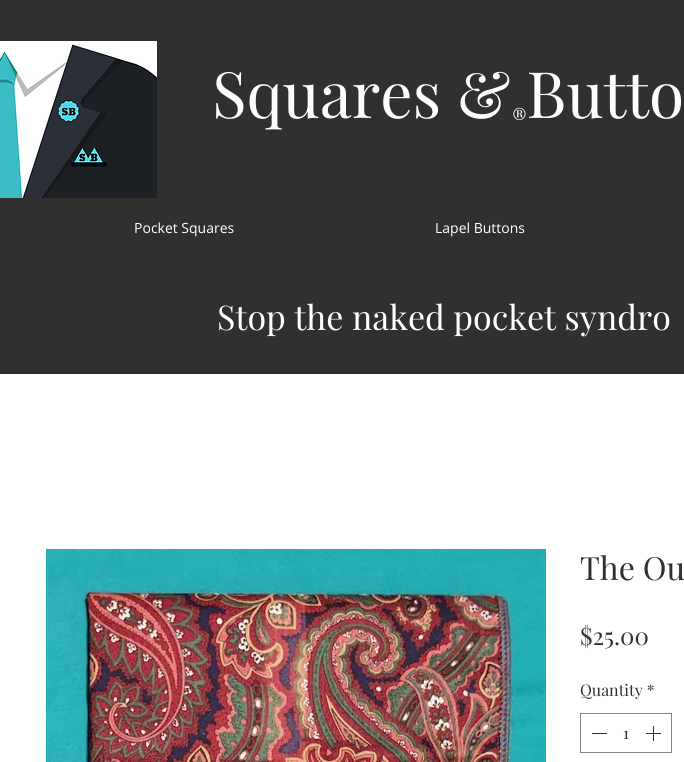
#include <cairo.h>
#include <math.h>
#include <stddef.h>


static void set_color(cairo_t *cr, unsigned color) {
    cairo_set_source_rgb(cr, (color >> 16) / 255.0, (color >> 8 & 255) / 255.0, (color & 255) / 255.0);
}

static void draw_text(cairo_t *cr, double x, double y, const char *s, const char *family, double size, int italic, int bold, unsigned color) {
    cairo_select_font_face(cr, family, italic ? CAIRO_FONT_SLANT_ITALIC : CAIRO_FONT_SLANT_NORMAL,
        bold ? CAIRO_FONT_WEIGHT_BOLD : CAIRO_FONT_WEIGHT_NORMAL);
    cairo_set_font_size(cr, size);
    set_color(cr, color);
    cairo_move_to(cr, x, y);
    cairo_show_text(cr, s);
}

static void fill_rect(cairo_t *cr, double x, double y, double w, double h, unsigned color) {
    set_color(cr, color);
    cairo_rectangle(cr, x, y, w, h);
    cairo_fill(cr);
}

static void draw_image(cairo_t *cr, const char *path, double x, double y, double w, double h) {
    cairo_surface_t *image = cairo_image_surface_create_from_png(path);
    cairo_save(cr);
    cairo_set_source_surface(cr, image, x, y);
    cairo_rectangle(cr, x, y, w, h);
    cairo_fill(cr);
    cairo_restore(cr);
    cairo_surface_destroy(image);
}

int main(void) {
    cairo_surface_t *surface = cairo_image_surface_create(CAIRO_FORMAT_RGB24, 684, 762);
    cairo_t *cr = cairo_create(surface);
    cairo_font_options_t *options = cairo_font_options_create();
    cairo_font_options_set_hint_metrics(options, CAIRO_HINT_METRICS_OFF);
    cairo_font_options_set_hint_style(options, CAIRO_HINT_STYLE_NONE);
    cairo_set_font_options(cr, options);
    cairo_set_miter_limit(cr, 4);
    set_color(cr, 0xFFFFFF);
    cairo_paint(cr);
    fill_rect(cr, 0, 0, 684, 374, 0x303030);
    draw_text(cr, 512, 125, "®", "Playfair Display", 22, 0, 0, 0xFFFFFF);
    draw_text(cr, 212, 118, "Squares & Butto", "Playfair Display", 64, 0, 0, 0xFFFFFF);
    draw_image(cr, "assets/img1.png", 0, 41, 157, 157);
    draw_text(cr, 134, 233, "Pocket Squares", "Open Sans", 14, 0, 0, 0xFFFFFF);
    draw_text(cr, 435, 233, "Lapel Buttons", "Open Sans", 14, 0, 0, 0xFFFFFF);
    draw_text(cr, 217, 330, "Stop the naked pocket syndro", "Playfair Display", 34, 0, 0, 0xFFFFFF);
    draw_image(cr, "assets/img2.png", 46, 549, 500, 213);
    draw_text(cr, 580, 580, "The Ou", "Playfair Display", 32, 0, 0, 0x303030);
    draw_text(cr, 580, 645, "$25.00", "Playfair Display", 24, 0, 0, 0x303030);
    draw_text(cr, 580, 696, "Quantity *", "Playfair Display", 16, 0, 0, 0x303030);
    cairo_rectangle(cr, 580.5, 713.5, 91, 39);
    set_color(cr, 0x838383);
    cairo_set_line_width(cr, 1);
    cairo_stroke(cr);
    fill_rect(cr, 592, 733, 15, 1, 0x303030);
    draw_text(cr, 623, 739, "1", "Playfair Display", 16, 0, 0, 0x303030);
    draw_image(cr, "assets/img3.png", 646, 726, 15, 15);
    cairo_surface_write_to_png(surface, "output.png");
    cairo_font_options_destroy(options);
    cairo_destroy(cr);
    cairo_surface_destroy(surface);
    return 0;
}
